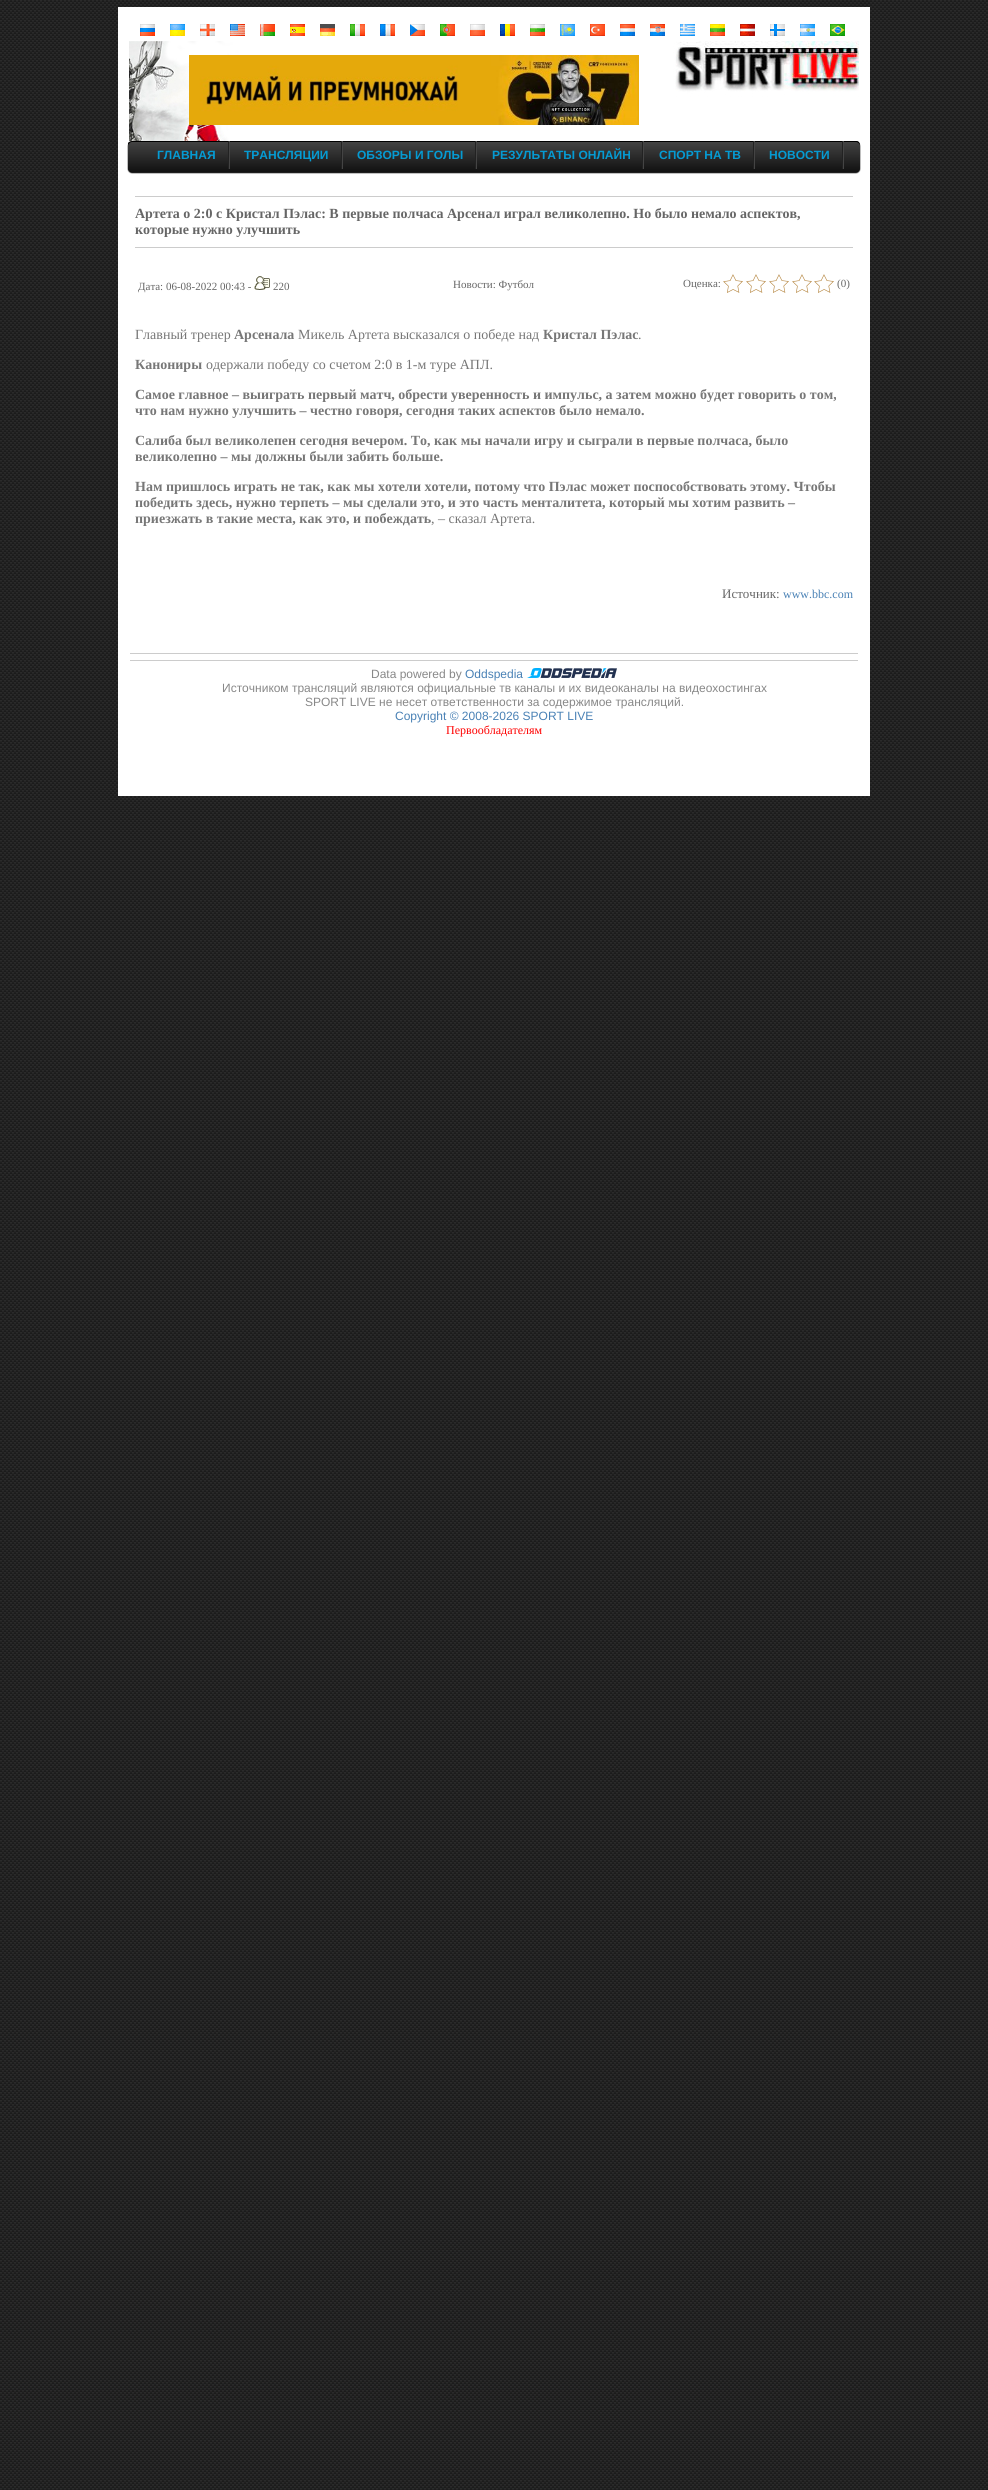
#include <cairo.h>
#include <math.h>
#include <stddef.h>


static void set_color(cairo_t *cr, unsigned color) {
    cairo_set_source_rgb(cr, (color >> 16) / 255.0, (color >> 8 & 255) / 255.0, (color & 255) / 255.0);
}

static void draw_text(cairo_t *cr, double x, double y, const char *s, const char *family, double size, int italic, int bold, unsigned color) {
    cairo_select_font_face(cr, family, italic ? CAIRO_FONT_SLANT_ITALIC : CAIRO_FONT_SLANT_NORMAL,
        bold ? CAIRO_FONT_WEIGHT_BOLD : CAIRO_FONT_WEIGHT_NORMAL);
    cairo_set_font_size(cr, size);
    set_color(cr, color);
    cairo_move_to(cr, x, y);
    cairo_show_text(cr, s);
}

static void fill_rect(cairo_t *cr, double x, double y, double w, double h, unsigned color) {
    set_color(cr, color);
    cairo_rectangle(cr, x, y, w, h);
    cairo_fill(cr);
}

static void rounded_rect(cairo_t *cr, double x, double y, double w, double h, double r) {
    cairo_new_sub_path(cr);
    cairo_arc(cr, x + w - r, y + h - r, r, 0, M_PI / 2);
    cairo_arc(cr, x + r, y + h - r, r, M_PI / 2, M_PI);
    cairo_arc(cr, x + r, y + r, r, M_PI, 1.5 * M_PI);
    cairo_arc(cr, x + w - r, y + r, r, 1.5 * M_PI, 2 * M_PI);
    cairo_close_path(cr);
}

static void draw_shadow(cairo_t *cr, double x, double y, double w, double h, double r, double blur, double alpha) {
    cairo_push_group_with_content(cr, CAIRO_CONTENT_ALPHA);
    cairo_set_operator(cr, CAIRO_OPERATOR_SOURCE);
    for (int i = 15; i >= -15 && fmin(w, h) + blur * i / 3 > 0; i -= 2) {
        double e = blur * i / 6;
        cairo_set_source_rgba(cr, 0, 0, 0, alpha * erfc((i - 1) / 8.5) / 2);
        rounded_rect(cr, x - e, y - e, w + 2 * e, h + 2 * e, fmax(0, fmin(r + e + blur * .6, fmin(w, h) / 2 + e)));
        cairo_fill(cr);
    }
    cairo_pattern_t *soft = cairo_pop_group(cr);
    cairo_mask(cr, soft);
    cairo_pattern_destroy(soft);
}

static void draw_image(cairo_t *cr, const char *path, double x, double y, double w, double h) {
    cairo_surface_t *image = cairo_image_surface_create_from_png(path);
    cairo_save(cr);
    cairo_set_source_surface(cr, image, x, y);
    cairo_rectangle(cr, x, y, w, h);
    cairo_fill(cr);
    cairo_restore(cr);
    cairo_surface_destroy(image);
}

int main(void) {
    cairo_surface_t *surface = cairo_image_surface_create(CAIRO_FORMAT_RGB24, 988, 2490);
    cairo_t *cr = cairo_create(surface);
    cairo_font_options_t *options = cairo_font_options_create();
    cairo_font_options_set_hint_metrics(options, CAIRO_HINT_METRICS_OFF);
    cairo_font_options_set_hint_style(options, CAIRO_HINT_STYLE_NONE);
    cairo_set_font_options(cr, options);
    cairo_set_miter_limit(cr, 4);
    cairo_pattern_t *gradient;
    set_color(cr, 0xFFFFFF);
    cairo_paint(cr);
    draw_image(cr, "assets/img1.png", 0, 0, 988, 2490);
    fill_rect(cr, 118, 7, 752, 789, 0xFFFFFF);
    draw_image(cr, "assets/img2.png", 140, 24, 705, 12);
    draw_image(cr, "assets/img3.png", 129, 41, 730, 100);
    draw_image(cr, "assets/img4.png", 189, 55, 450, 70);
    set_color(cr, 0x000000);
    draw_shadow(cr, 128, 142, 732, 31, 4, 0.5, 1);
    gradient = cairo_pattern_create_linear(494, 141, 494, 172);
    cairo_pattern_add_color_stop_rgba(gradient, 0, 0.267, 0.267, 0.267, 1);
    cairo_pattern_add_color_stop_rgba(gradient, 1, 0.067, 0.067, 0.067, 1);
    cairo_set_source(cr, gradient);
    cairo_pattern_destroy(gradient);
    rounded_rect(cr, 128, 141, 732, 31, 4);
    cairo_fill(cr);
    set_color(cr, 0x000000);
    cairo_new_path(cr);
    cairo_move_to(cr, 132, 142);
    cairo_line_to(cr, 856, 142);
    cairo_curve_to(cr, 858, 142, 860, 144, 860, 146);
    cairo_curve_to(cr, 860, 143, 859, 141, 856, 141);
    cairo_line_to(cr, 132, 141);
    cairo_line_to(cr, 129, 142);
    cairo_line_to(cr, 128, 143);
    cairo_line_to(cr, 128, 146);
    cairo_curve_to(cr, 128, 144, 130, 142, 132, 142);
    cairo_close_path(cr);
    cairo_fill(cr);
    fill_rect(cr, 229, 141, 1, 28, 0x444444);
    fill_rect(cr, 228, 141, 1, 28, 0x222222);
    draw_text(cr, 157, 159, "ГЛАВНАЯ", "Liberation Sans", 12, 0, 1, 0x059BD3);
    fill_rect(cr, 342, 141, 1, 28, 0x444444);
    fill_rect(cr, 341, 141, 1, 28, 0x222222);
    draw_text(cr, 244, 159, "ТРАНСЛЯЦИИ", "Liberation Sans", 12, 0, 1, 0x059BD3);
    fill_rect(cr, 476, 141, 1, 28, 0x444444);
    fill_rect(cr, 475, 141, 1, 28, 0x222222);
    draw_text(cr, 357, 159, "ОБЗОРЫ И ГОЛЫ", "Liberation Sans", 12, 0, 1, 0x059BD3);
    fill_rect(cr, 643, 141, 1, 28, 0x444444);
    fill_rect(cr, 642, 141, 1, 28, 0x222222);
    draw_text(cr, 492, 159, "РЕЗУЛЬТАТЫ ОНЛАЙН", "Liberation Sans", 12, 0, 1, 0x059BD3);
    fill_rect(cr, 754, 141, 1, 28, 0x444444);
    fill_rect(cr, 753, 141, 1, 28, 0x222222);
    draw_text(cr, 659, 159, "СПОРТ НА ТВ", "Liberation Sans", 12, 0, 1, 0x059BD3);
    fill_rect(cr, 843, 141, 1, 28, 0x444444);
    fill_rect(cr, 842, 141, 1, 28, 0x222222);
    draw_text(cr, 769, 159, "НОВОСТИ", "Liberation Sans", 12, 0, 1, 0x059BD3);
    fill_rect(cr, 135, 196, 718, 1, 0xCCCCCC);
    draw_text(cr, 135, 218, "Артета о 2:0 с Кристал Пэлас: В первые полчаса Арсенал играл великолепно. Но было немало аспектов,", "Liberation Serif", 14, 0, 1, 0x666666);
    draw_text(cr, 135, 234, "которые нужно улучшить", "Liberation Serif", 14, 0, 1, 0x666666);
    fill_rect(cr, 135, 247, 718, 1, 0xCCCCCC);
    draw_text(cr, 138, 290, "Дата: 06-08-2022 00:43 -", "Liberation Serif", 11, 0, 0, 0x666666);
    draw_image(cr, "assets/img5.png", 254, 276, 16, 14);
    draw_text(cr, 273, 290, "220", "Liberation Serif", 11, 0, 0, 0x666666);
    draw_text(cr, 453, 288, "Новости: Футбол", "Liberation Serif", 11, 0, 0, 0x666666);
    draw_text(cr, 683, 287, "Оценка:", "Liberation Serif", 11, 0, 0, 0x666666);
    draw_image(cr, "assets/img6.png", 723, 274, 20, 19);
    draw_image(cr, "assets/img6.png", 746, 274, 20, 19);
    draw_image(cr, "assets/img6.png", 769, 274, 20, 19);
    draw_image(cr, "assets/img6.png", 792, 274, 20, 19);
    draw_image(cr, "assets/img6.png", 814, 274, 20, 19);
    draw_text(cr, 837, 287, "(0)", "Liberation Serif", 11, 0, 0, 0x666666);
    draw_text(cr, 135, 339, "Главный тренер", "Liberation Serif", 14, 0, 0, 0x777777);
    draw_text(cr, 234, 339, "Арсенала", "Liberation Serif", 14, 0, 1, 0x777777);
    draw_text(cr, 298, 339, "Микель Артета высказался о победе над", "Liberation Serif", 14, 0, 0, 0x777777);
    draw_text(cr, 543, 339, "Кристал Пэлас", "Liberation Serif", 14, 0, 1, 0x777777);
    draw_text(cr, 638, 339, ".", "Liberation Serif", 14, 0, 0, 0x777777);
    draw_text(cr, 135, 369, "Канониры", "Liberation Serif", 14, 0, 1, 0x777777);
    draw_text(cr, 206, 369, "одержали победу со счетом 2:0 в 1-м туре АПЛ.", "Liberation Serif", 14, 0, 0, 0x777777);
    draw_text(cr, 135, 399, "Самое главное – выиграть первый матч, обрести уверенность и импульс, а затем можно будет говорить о том,", "Liberation Serif", 14, 0, 1, 0x777777);
    draw_text(cr, 135, 415, "что нам нужно улучшить – честно говоря, сегодня таких аспектов было немало.", "Liberation Serif", 14, 0, 1, 0x777777);
    draw_text(cr, 135, 445, "Салиба был великолепен сегодня вечером. То, как мы начали игру и сыграли в первые полчаса, было", "Liberation Serif", 14, 0, 1, 0x777777);
    draw_text(cr, 135, 461, "великолепно – мы должны были забить больше.", "Liberation Serif", 14, 0, 1, 0x777777);
    draw_text(cr, 135, 491, "Нам пришлось играть не так, как мы хотели хотели, потому что Пэлас может поспособствовать этому. Чтобы", "Liberation Serif", 14, 0, 1, 0x777777);
    draw_text(cr, 135, 507, "победить здесь, нужно терпеть – мы сделали это, и это часть менталитета, который мы хотим развить –", "Liberation Serif", 14, 0, 1, 0x777777);
    draw_text(cr, 135, 523, "приезжать в такие места, как это, и побеждать", "Liberation Serif", 14, 0, 1, 0x777777);
    draw_text(cr, 431, 523, ", – сказал Артета.", "Liberation Serif", 14, 0, 0, 0x777777);
    draw_text(cr, 722, 598, "Источник:", "Liberation Serif", 13, 0, 0, 0x666666);
    draw_text(cr, 783, 598, "www.bbc.com", "Liberation Serif", 12, 0, 0, 0x4981B5);
    fill_rect(cr, 130, 653, 728, 1, 0xCCCCCC);
    fill_rect(cr, 130, 660, 728, 1, 0xCCCCCC);
    draw_text(cr, 371, 678, "Data powered by", "Liberation Sans", 12, 0, 0, 0x888888);
    draw_text(cr, 465, 678, "Oddspedia", "Liberation Sans", 12, 0, 0, 0x4981B5);
    draw_image(cr, "assets/img7.png", 527, 668, 90, 10);
    draw_text(cr, 222, 692, "Источником трансляций являются официальные тв каналы и их видеоканалы на видеохостингах", "Liberation Sans", 12, 0, 0, 0x888888);
    draw_text(cr, 305, 706, "SPORT LIVE не несет ответственности за содержимое трансляций.", "Liberation Sans", 12, 0, 0, 0x888888);
    draw_text(cr, 395, 720, "Copyright © 2008-2026 SPORT LIVE", "Liberation Sans", 12, 0, 0, 0x4981B5);
    draw_text(cr, 446, 734, "Первообладателям", "Liberation Serif", 12, 0, 0, 0xFF0000);
    cairo_surface_write_to_png(surface, "output.png");
    cairo_font_options_destroy(options);
    cairo_destroy(cr);
    cairo_surface_destroy(surface);
    return 0;
}
